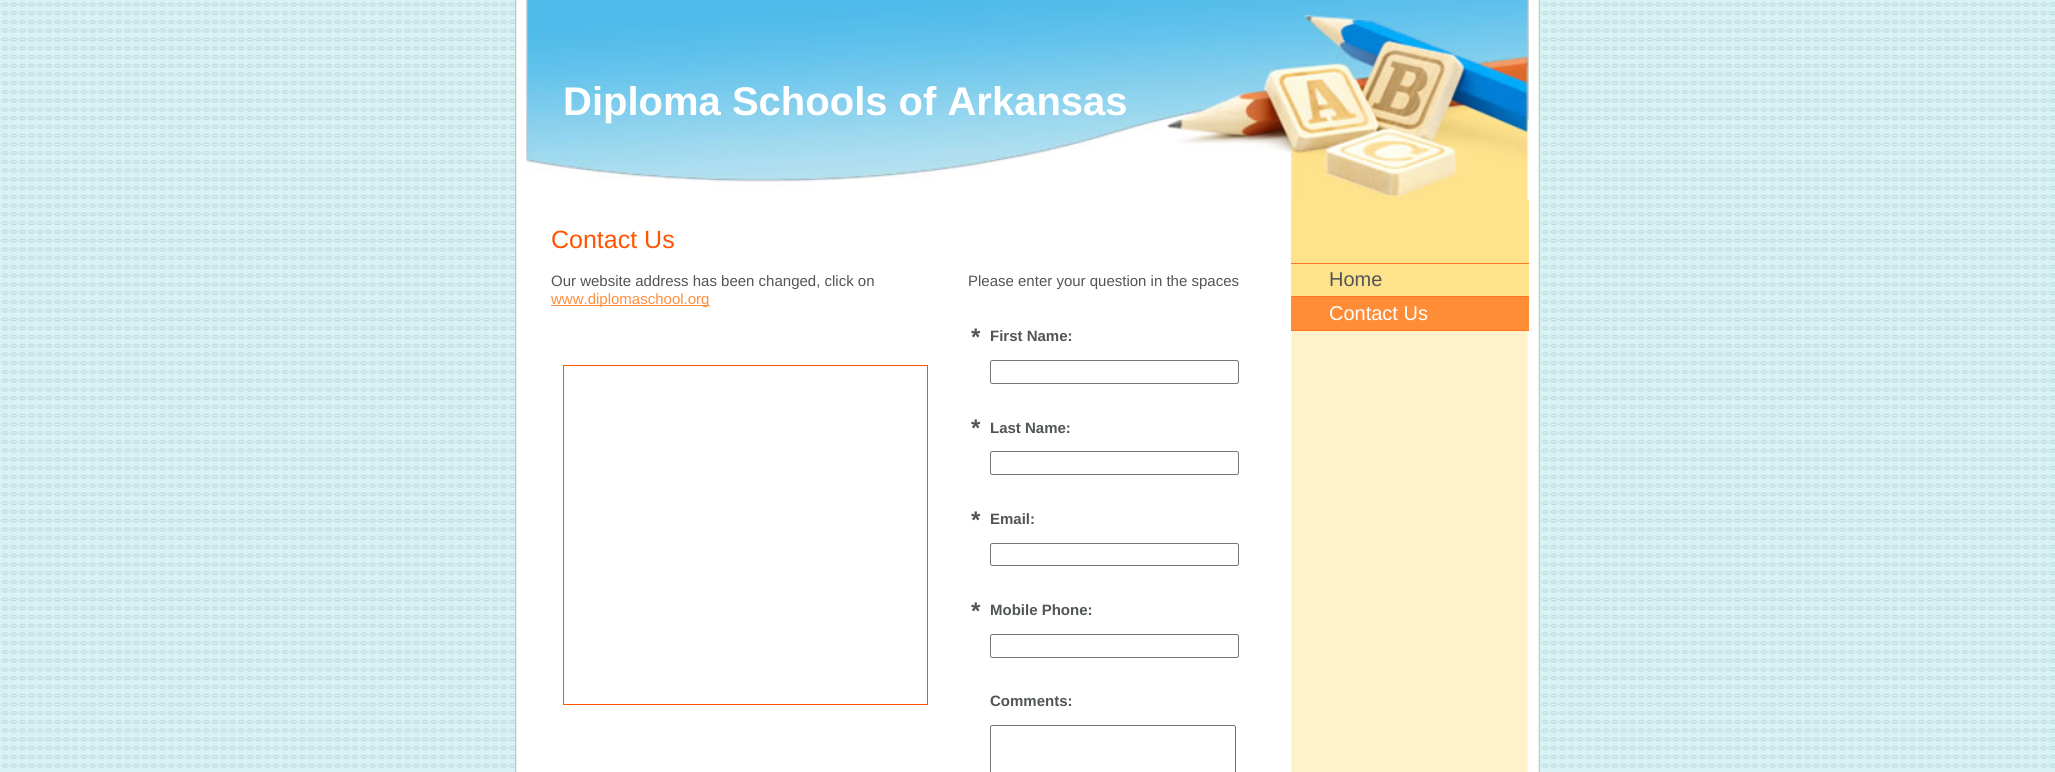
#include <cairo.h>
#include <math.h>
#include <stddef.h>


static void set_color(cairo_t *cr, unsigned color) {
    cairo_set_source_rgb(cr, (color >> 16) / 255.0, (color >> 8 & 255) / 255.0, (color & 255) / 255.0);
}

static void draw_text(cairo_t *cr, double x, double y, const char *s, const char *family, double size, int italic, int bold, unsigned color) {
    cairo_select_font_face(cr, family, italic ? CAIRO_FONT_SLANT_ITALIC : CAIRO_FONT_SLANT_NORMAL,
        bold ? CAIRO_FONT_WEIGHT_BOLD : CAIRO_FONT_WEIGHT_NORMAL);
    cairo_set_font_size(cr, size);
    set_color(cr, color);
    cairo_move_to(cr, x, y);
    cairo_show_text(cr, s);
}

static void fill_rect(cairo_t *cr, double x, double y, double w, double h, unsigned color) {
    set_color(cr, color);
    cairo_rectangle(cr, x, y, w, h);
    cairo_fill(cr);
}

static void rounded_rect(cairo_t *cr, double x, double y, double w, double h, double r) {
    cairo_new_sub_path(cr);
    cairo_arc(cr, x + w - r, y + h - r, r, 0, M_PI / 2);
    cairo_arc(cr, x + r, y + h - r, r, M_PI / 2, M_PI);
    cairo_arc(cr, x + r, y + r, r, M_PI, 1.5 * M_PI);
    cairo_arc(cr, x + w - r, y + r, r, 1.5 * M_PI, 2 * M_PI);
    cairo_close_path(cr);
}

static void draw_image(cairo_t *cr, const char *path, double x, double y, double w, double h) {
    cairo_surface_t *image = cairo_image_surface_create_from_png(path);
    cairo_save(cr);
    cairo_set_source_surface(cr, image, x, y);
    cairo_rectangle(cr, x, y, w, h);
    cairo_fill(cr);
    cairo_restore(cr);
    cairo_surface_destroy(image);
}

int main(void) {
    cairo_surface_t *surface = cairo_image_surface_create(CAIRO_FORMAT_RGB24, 2055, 772);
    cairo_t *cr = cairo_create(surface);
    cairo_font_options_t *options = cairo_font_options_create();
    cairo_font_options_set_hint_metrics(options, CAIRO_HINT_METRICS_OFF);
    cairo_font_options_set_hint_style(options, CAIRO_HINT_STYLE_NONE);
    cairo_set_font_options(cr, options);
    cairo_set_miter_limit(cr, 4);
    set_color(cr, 0xFFFFFF);
    cairo_paint(cr);
    draw_image(cr, "assets/img1.png", 0, 0, 2055, 772);
    draw_image(cr, "assets/img2.png", 515, 0, 1025, 772);
    draw_image(cr, "assets/img3.png", 1290, 0, 239, 772);
    draw_image(cr, "assets/img4.png", 526, 0, 1003, 200);
    draw_text(cr, 563, 115, "Diploma Schools of Arkansas", "Liberation Sans", 40, 0, 1, 0xFFFFFF);
    draw_text(cr, 551, 248, "Contact Us", "Liberation Sans", 25, 0, 0, 0xFF5400);
    draw_text(cr, 551, 286, "Our website address has been changed, click on", "Liberation Sans", 15, 0, 0, 0x515655);
    fill_rect(cr, 551, 305, 159, 1, 0xFF8E3C);
    draw_text(cr, 551, 304, "www.diplomaschool.org", "Liberation Sans", 15, 0, 0, 0xFF8E3C);
    draw_text(cr, 968, 286, "Please enter your question in the spaces", "Liberation Sans", 15, 0, 0, 0x515655);
    draw_text(cr, 971, 345, "*", "Liberation Sans", 24, 0, 1, 0x515655);
    draw_text(cr, 990, 341, "First Name:", "Liberation Sans", 15, 0, 1, 0x515655);
    rounded_rect(cr, 990.5, 360.5, 248, 23, 2);
    set_color(cr, 0x767676);
    cairo_set_line_width(cr, 1);
    cairo_stroke(cr);
    draw_text(cr, 971, 436, "*", "Liberation Sans", 24, 0, 1, 0x515655);
    draw_text(cr, 990, 433, "Last Name:", "Liberation Sans", 15, 0, 1, 0x515655);
    rounded_rect(cr, 990.5, 451.5, 248, 23, 2);
    set_color(cr, 0x767676);
    cairo_stroke(cr);
    draw_text(cr, 971, 528, "*", "Liberation Sans", 24, 0, 1, 0x515655);
    draw_text(cr, 990, 524, "Email:", "Liberation Sans", 15, 0, 1, 0x515655);
    rounded_rect(cr, 990.5, 543.5, 248, 22, 2);
    set_color(cr, 0x767676);
    cairo_stroke(cr);
    draw_text(cr, 971, 619, "*", "Liberation Sans", 24, 0, 1, 0x515655);
    draw_text(cr, 990, 615, "Mobile Phone:", "Liberation Sans", 15, 0, 1, 0x515655);
    rounded_rect(cr, 990.5, 634.5, 248, 23, 2);
    set_color(cr, 0x767676);
    cairo_stroke(cr);
    draw_text(cr, 990, 706, "Comments:", "Liberation Sans", 15, 0, 1, 0x515655);
    rounded_rect(cr, 990.5, 725.5, 245, 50, 2);
    set_color(cr, 0x767676);
    cairo_stroke(cr);
    cairo_rectangle(cr, 563.5, 365.5, 364, 339);
    set_color(cr, 0xFF5400);
    cairo_stroke(cr);
    fill_rect(cr, 1291, 200, 238, 96, 0xFFE28C);
    fill_rect(cr, 1291, 330, 238, 1, 0xFF7924);
    fill_rect(cr, 1291, 263, 238, 1, 0xFF7924);
    draw_text(cr, 1329, 286, "Home", "Liberation Sans", 20, 0, 0, 0x515655);
    fill_rect(cr, 1291, 297, 238, 33, 0xFF8D37);
    fill_rect(cr, 1291, 296, 238, 1, 0xFF7924);
    draw_text(cr, 1329, 320, "Contact Us", "Liberation Sans", 20, 0, 0, 0xFFFFFF);
    cairo_surface_write_to_png(surface, "output.png");
    cairo_font_options_destroy(options);
    cairo_destroy(cr);
    cairo_surface_destroy(surface);
    return 0;
}
